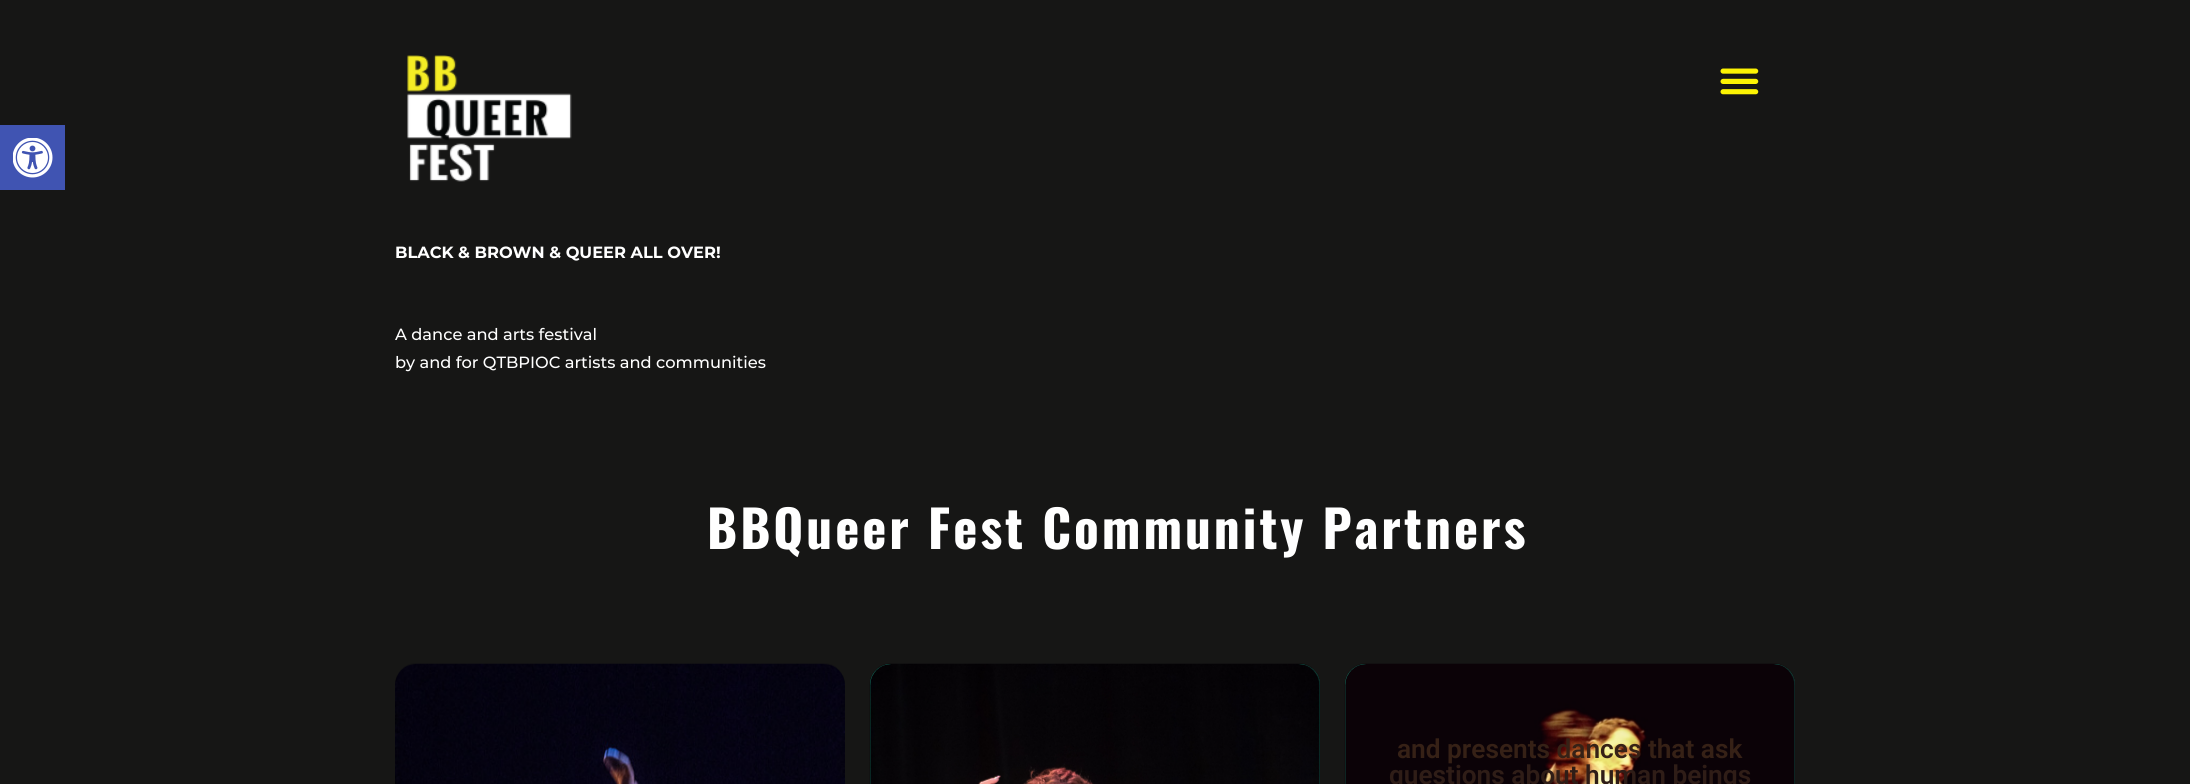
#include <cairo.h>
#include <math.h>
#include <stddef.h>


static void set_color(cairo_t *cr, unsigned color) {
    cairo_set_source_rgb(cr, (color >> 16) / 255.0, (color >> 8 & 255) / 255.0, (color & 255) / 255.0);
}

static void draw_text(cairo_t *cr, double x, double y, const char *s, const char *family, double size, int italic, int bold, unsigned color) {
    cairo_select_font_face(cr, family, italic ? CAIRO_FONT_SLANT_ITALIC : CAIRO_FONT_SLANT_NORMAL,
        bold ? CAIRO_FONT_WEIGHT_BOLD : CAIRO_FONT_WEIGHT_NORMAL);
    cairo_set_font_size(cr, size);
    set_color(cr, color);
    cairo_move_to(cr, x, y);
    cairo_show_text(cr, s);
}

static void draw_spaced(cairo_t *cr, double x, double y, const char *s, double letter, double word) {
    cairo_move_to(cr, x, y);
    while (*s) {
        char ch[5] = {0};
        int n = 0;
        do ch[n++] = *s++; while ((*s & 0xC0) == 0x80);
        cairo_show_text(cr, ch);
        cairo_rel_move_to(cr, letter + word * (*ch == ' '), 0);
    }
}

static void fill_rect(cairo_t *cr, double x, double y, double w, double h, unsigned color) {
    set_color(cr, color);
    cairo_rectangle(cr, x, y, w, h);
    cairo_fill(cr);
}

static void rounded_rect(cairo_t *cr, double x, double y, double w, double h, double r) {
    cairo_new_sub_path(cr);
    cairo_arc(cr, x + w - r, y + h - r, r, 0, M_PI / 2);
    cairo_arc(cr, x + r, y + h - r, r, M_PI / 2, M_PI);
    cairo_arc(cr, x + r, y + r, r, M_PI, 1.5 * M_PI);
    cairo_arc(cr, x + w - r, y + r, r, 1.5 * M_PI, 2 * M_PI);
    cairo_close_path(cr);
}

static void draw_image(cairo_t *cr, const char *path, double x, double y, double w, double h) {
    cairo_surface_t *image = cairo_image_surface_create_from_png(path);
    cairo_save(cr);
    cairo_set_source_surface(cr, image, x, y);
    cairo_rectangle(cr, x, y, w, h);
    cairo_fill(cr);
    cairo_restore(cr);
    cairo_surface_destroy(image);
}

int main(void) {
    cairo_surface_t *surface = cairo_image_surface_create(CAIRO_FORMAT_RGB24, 2190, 784);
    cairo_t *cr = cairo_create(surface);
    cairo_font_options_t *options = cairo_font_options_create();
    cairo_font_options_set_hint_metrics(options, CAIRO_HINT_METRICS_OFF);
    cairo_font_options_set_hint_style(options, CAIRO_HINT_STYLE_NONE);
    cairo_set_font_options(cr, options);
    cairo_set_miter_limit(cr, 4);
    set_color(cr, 0x161615);
    cairo_paint(cr);
    fill_rect(cr, 0, 125, 65, 65, 0x4054B2);
    draw_image(cr, "assets/img1.png", 13, 138, 40, 40);
    draw_image(cr, "assets/img2.png", 1720, 68, 39, 27);
    draw_image(cr, "assets/img3.png", 407, 55, 165, 127);
    draw_text(cr, 395, 258, "BLACK & BROWN & QUEER ALL OVER!", "Montserrat", 16.25, 0, 1, 0xFFFFFF);
    draw_text(cr, 395, 340, "A dance and arts festival", "Montserrat Medium", 16.25, 0, 0, 0xFFFFFF);
    draw_text(cr, 395, 368, "by and for QTBPIOC artists and communities", "Montserrat Medium", 16.25, 0, 0, 0xFFFFFF);
    cairo_select_font_face(cr, "Oswald", CAIRO_FONT_SLANT_NORMAL, CAIRO_FONT_WEIGHT_BOLD);
    cairo_set_font_size(cr, 51.25);
    draw_spaced(cr, 707, 549, "BBQueer Fest Community Partners", 3, 0);
    draw_image(cr, "assets/img4.png", 395, 663, 450, 121);
    set_color(cr, 0x1ABC9C);
    rounded_rect(cr, 870, 664, 450, 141, 21);
    cairo_fill(cr);
    draw_image(cr, "assets/img5.png", 869, 663, 451, 121);
    rounded_rect(cr, 1345, 664, 450, 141, 21);
    cairo_fill(cr);
    draw_image(cr, "assets/img6.png", 1344, 663, 451, 121);
    draw_text(cr, 1397, 758, "and presents dances that ask", "Roboto SemiBold", 26.25, 0, 0, 0x362116);
    draw_text(cr, 1389, 784, "questions about human beings", "Roboto SemiBold", 26.25, 0, 0, 0x2F1D17);
    cairo_surface_write_to_png(surface, "output.png");
    cairo_font_options_destroy(options);
    cairo_destroy(cr);
    cairo_surface_destroy(surface);
    return 0;
}
